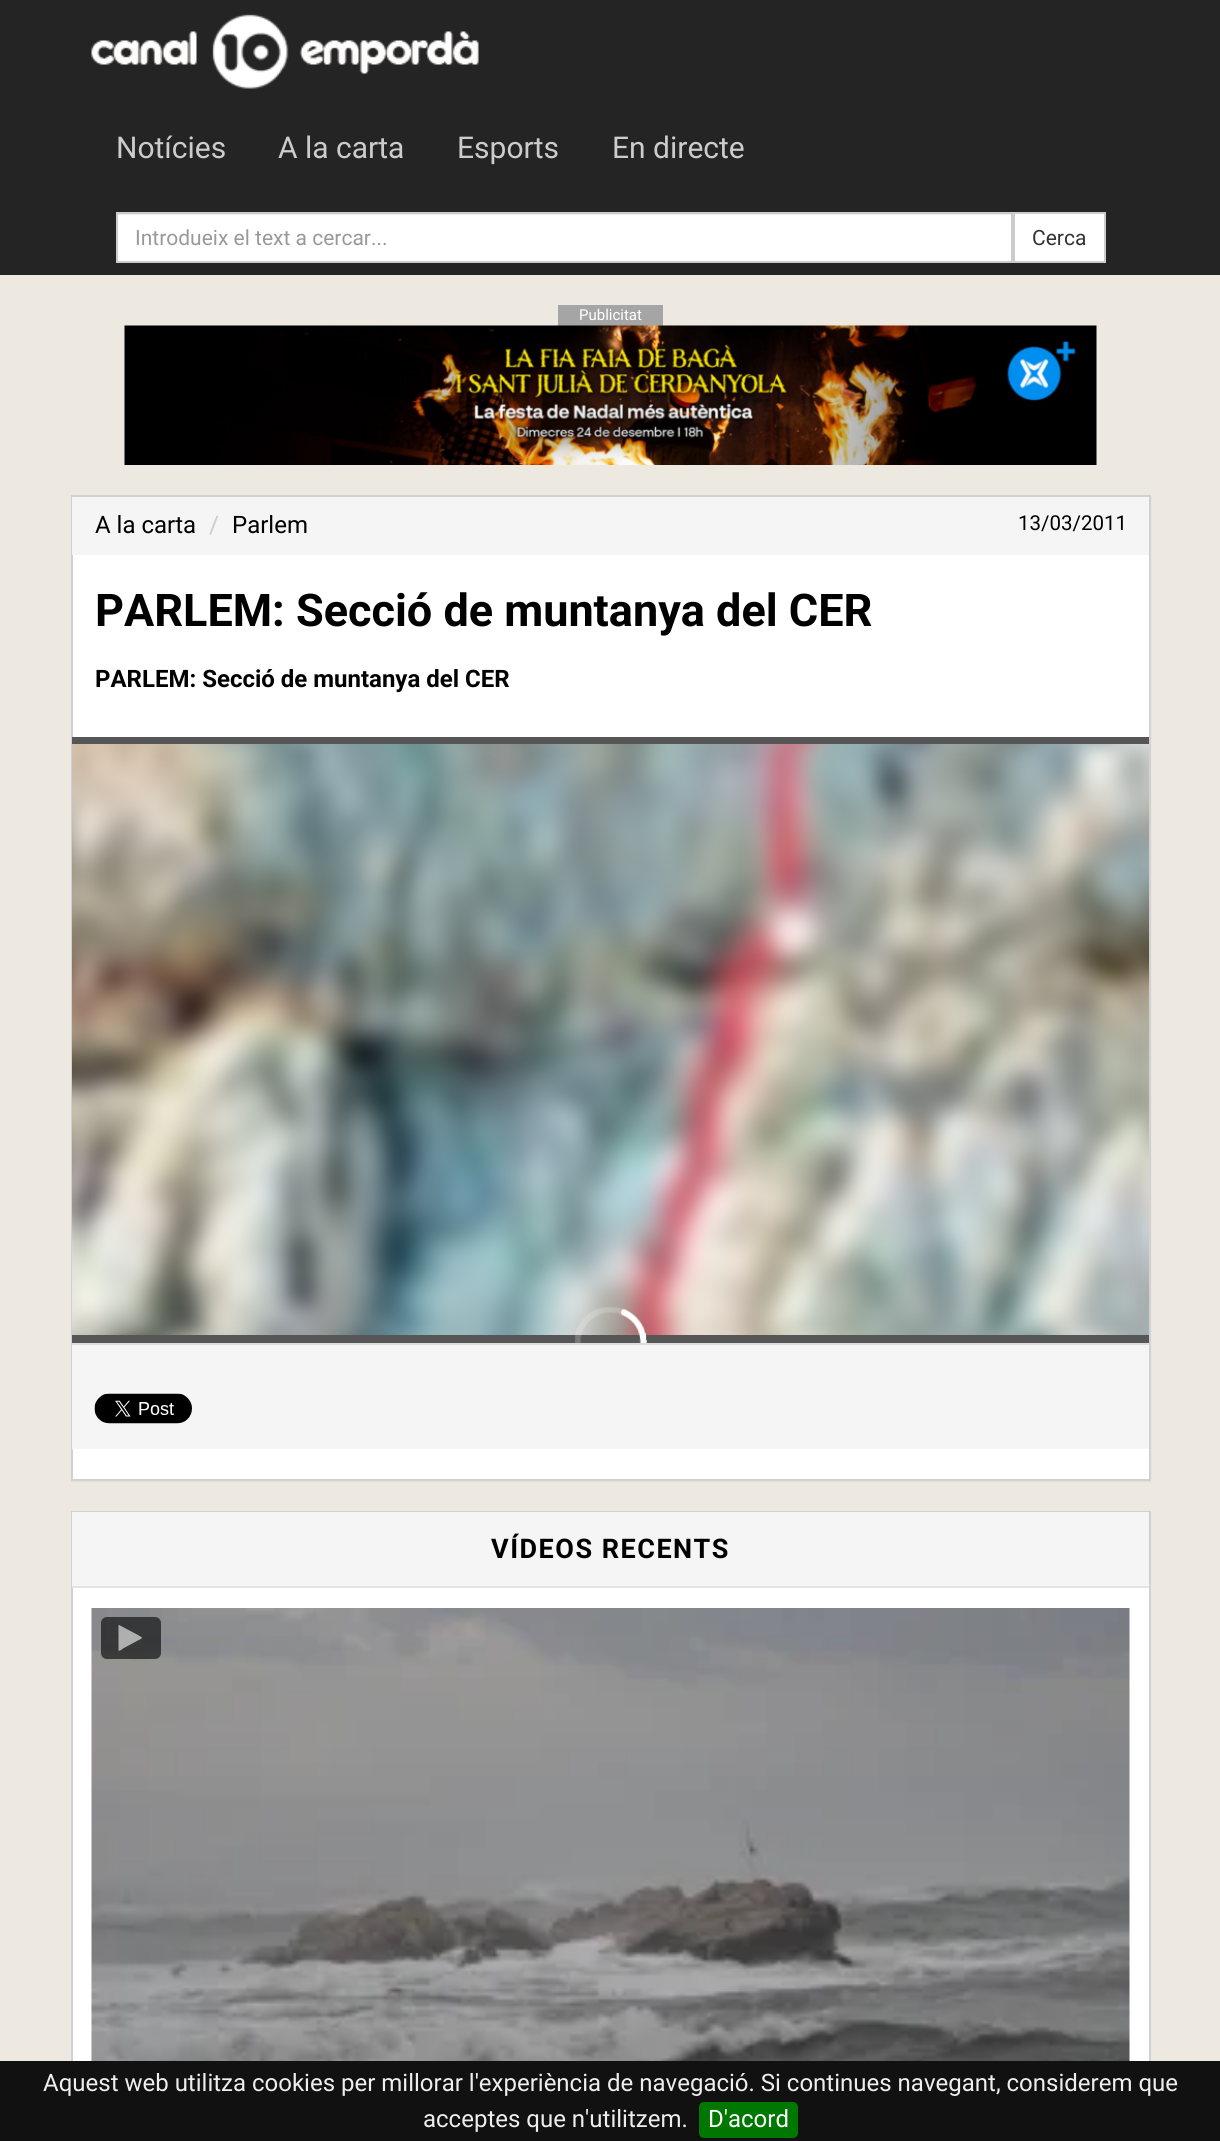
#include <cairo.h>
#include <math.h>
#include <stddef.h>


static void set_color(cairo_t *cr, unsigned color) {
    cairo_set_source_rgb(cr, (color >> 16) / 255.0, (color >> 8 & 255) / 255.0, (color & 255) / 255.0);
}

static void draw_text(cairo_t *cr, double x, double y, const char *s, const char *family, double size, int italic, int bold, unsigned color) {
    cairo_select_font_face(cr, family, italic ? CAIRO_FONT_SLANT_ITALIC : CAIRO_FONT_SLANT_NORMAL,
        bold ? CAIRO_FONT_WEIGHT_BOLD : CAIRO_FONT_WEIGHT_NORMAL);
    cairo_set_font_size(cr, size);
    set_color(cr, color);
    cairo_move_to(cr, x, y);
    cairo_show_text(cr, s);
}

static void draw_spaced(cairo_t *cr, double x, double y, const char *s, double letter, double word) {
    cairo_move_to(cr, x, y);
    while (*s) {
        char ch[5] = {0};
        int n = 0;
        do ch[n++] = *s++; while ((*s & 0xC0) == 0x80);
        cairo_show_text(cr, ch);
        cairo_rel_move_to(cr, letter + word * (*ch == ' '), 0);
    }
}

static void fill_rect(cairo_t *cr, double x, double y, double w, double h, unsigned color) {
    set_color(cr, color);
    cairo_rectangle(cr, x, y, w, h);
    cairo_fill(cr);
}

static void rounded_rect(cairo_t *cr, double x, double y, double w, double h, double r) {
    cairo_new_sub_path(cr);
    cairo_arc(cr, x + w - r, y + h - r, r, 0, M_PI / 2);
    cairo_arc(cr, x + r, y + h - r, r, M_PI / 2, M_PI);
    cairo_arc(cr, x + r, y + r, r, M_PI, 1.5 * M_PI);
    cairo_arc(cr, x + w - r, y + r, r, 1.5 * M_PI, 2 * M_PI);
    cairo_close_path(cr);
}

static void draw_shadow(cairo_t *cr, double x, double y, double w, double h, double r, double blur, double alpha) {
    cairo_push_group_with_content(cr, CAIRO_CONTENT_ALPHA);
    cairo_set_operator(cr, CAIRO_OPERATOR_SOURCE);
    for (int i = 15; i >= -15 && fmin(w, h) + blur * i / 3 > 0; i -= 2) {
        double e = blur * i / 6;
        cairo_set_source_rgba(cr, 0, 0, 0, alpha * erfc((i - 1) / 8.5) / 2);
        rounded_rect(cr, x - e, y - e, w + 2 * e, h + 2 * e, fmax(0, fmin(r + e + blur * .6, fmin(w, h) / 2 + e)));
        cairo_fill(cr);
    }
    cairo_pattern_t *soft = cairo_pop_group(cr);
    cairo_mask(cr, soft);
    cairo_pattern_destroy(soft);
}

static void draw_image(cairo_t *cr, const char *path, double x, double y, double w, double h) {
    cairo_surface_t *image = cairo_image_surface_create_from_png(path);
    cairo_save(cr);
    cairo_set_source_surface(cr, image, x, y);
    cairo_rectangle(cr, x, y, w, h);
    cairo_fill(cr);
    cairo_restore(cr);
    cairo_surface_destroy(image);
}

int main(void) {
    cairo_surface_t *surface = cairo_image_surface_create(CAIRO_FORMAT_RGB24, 1220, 2141);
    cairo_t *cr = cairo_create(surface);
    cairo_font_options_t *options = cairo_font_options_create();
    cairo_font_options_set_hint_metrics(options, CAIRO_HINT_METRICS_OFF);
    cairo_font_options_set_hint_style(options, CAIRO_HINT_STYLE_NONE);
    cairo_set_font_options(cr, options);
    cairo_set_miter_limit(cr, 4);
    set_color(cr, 0xEDE9E1);
    cairo_paint(cr);
    fill_rect(cr, 0, 0, 1220, 275, 0x242424);
    draw_image(cr, "assets/img1.png", 91, 14, 388, 75);
    draw_text(cr, 116, 158, "Notícies", "Roboto", 30, 0, 0, 0xCCCCCC);
    draw_text(cr, 278, 158, "A la carta", "Roboto", 30, 0, 0, 0xCCCCCC);
    draw_text(cr, 457, 158, "Esports", "Roboto", 30, 0, 0, 0xCCCCCC);
    draw_text(cr, 612, 158, "En directe", "Roboto", 30, 0, 0, 0xCCCCCC);
    fill_rect(cr, 118, 215, 893, 46, 0xFFFFFF);
    fill_rect(cr, 117, 214, 894, 1, 0xECECEC);
    cairo_rectangle(cr, 117, 213, 895, 49);
    set_color(cr, 0xCCCCCC);
    cairo_stroke(cr);
    draw_text(cr, 135, 245, "Introdueix el text a cercar...", "Roboto", 21, 0, 0, 0x999999);
    set_color(cr, 0xFFFFFF);
    cairo_rectangle(cr, 1014, 213, 91, 49);
    cairo_fill_preserve(cr);
    set_color(cr, 0xCCCCCC);
    cairo_stroke(cr);
    draw_text(cr, 1032, 245, "Cerca", "Roboto", 21, 0, 0, 0x333333);
    fill_rect(cr, 558, 305, 105, 21, 0xA5A5A5);
    draw_text(cr, 579, 320, "Publicitat", "Roboto", 15, 0, 0, 0xFFFFFF);
    draw_image(cr, "assets/img2.png", 124, 325, 973, 140);
    set_color(cr, 0x000000);
    draw_shadow(cr, 71, 497, 1080, 985, 0, 1, 0.05);
    fill_rect(cr, 73, 555, 1076, 924, 0xFFFFFF);
    cairo_rectangle(cr, 72, 496, 1078, 984);
    set_color(cr, 0xD1D1D1);
    cairo_stroke(cr);
    fill_rect(cr, 72, 497, 1077, 58, 0xF5F5F5);
    draw_text(cr, 95, 533, "A la carta", "Roboto", 24, 0, 0, 0x000000);
    draw_text(cr, 209, 533, "/", "Roboto", 24, 0, 0, 0xCCCCCC);
    draw_text(cr, 232, 533, "Parlem", "Roboto", 24, 0, 0, 0x000000);
    draw_text(cr, 1018, 530, "13/03/2011", "Roboto", 20.5, 0, 0, 0x000000);
    draw_text(cr, 95, 626, "PARLEM: Secció de muntanya del CER", "Roboto", 45, 0, 1, 0x000000);
    draw_text(cr, 95, 687, "PARLEM: Secció de muntanya del CER", "Roboto", 24, 0, 1, 0x000000);
    fill_rect(cr, 72, 737, 1077, 606, 0x565656);
    draw_image(cr, "assets/img3.png", 72, 744, 1077, 599);
    fill_rect(cr, 72, 1345, 1077, 104, 0xF5F5F5);
    fill_rect(cr, 72, 1343, 1077, 2, 0xDDDDDD);
    draw_image(cr, "assets/img4.png", 94, 1393, 98, 31);
    fill_rect(cr, 73, 1588, 1076, 473, 0xFFFFFF);
    cairo_rectangle(cr, 72, 1512, 1078, 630);
    set_color(cr, 0xD1D1D1);
    cairo_stroke(cr);
    fill_rect(cr, 72, 1512, 1077, 74, 0xF5F5F5);
    fill_rect(cr, 72, 1586, 1077, 2, 0xE4E4E4);
    cairo_set_font_size(cr, 27);
    set_color(cr, 0x000000);
    draw_spaced(cr, 491, 1558, "VÍDEOS RECENTS", 1.5, 0);
    draw_image(cr, "assets/img5.png", 91, 1608, 1039, 453);
    cairo_set_source_rgba(cr, 0, 0, 0, 0.6);
    rounded_rect(cr, 101, 1617, 60, 42, 6);
    cairo_fill(cr);
    set_color(cr, 0xAFAFB0);
    cairo_new_path(cr);
    cairo_move_to(cr, 141.5, 1638.5);
    cairo_line_to(cr, 123, 1648.5);
    cairo_curve_to(cr, 122.5, 1649, 119.5, 1651.5, 118.5, 1650.5);
    cairo_line_to(cr, 118.5, 1625);
    cairo_line_to(cr, 119, 1625);
    cairo_line_to(cr, 138, 1635);
    cairo_line_to(cr, 142, 1637.5);
    cairo_close_path(cr);
    cairo_fill(cr);
    fill_rect(cr, 0, 2061, 1220, 80, 0x111111);
    draw_text(cr, 43, 2091, "Aquest web utilitza cookies per millorar l'experiència de navegació. Si continues navegant, considerem que", "Roboto", 24, 0, 0, 0xEEEEEE);
    draw_text(cr, 423, 2127, "acceptes que n'utilitzem.", "Roboto", 24, 0, 0, 0xEEEEEE);
    set_color(cr, 0x007700);
    rounded_rect(cr, 699, 2102, 99, 36, 5);
    cairo_fill(cr);
    draw_text(cr, 708, 2127, "D'acord", "Roboto", 24, 0, 0, 0xFFFFFF);
    cairo_surface_write_to_png(surface, "output.png");
    cairo_font_options_destroy(options);
    cairo_destroy(cr);
    cairo_surface_destroy(surface);
    return 0;
}
